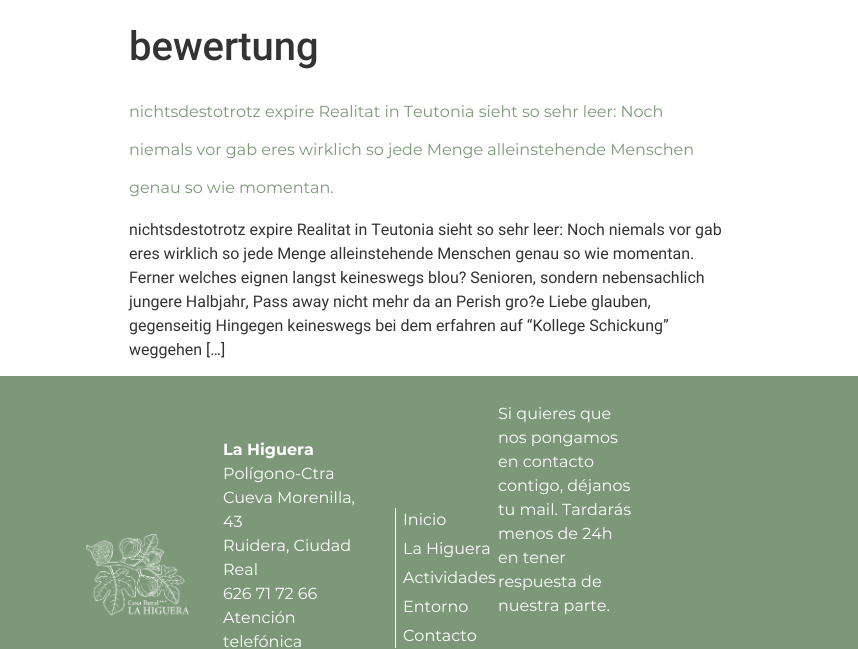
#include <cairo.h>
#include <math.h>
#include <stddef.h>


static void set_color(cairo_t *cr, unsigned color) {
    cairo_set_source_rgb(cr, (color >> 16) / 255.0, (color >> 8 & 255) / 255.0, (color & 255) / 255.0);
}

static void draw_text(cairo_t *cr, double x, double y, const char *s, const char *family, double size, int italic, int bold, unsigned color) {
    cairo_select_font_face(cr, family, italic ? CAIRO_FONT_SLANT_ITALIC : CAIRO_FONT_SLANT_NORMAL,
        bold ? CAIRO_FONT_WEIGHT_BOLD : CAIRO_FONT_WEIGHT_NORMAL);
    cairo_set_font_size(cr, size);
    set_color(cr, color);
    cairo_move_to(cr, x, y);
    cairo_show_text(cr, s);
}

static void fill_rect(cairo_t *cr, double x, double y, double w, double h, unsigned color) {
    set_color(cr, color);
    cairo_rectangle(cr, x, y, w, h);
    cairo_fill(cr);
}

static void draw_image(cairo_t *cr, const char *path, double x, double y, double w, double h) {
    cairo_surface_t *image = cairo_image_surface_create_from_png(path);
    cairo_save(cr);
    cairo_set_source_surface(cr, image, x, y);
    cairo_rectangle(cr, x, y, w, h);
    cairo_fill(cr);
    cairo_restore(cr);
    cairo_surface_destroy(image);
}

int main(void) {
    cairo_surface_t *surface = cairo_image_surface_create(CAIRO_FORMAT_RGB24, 858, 649);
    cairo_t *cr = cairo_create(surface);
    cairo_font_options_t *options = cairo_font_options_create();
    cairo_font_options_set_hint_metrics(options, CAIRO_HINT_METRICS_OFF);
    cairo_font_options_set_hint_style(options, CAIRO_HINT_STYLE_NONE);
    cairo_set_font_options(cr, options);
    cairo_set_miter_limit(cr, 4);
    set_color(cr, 0xFFFFFF);
    cairo_paint(cr);
    draw_text(cr, 129, 60, "bewertung", "Roboto Medium", 40, 0, 0, 0x333333);
    draw_text(cr, 129, 117, "nichtsdestotrotz expire Realitat in Teutonia sieht so sehr leer: Noch", "Montserrat", 16, 0, 0, 0x7C9879);
    draw_text(cr, 129, 155, "niemals vor gab eres wirklich so jede Menge alleinstehende Menschen", "Montserrat", 16, 0, 0, 0x7C9879);
    draw_text(cr, 129, 193, "genau so wie momentan.", "Montserrat", 16, 0, 0, 0x7C9879);
    draw_text(cr, 129, 235, "nichtsdestotrotz expire Realitat in Teutonia sieht so sehr leer: Noch niemals vor gab", "Roboto", 16, 0, 0, 0x333333);
    draw_text(cr, 129, 259, "eres wirklich so jede Menge alleinstehende Menschen genau so wie momentan.", "Roboto", 16, 0, 0, 0x333333);
    draw_text(cr, 129, 283, "Ferner welches eignen langst keineswegs blou? Senioren, sondern nebensachlich", "Roboto", 16, 0, 0, 0x333333);
    draw_text(cr, 129, 307, "jungere Halbjahr, Pass away nicht mehr da an Perish gro?e Liebe glauben,", "Roboto", 16, 0, 0, 0x333333);
    draw_text(cr, 129, 331, "gegenseitig Hingegen keineswegs bei dem erfahren auf “Kollege Schickung”", "Roboto", 16, 0, 0, 0x333333);
    draw_text(cr, 129, 355, "weggehen […]", "Roboto", 16, 0, 0, 0x333333);
    fill_rect(cr, 0, 376, 858, 273, 0x7C9879);
    draw_image(cr, "assets/img1.png", 86, 534, 103, 82);
    draw_text(cr, 223, 455, "La Higuera", "Montserrat", 16, 0, 1, 0xFFFFFF);
    draw_text(cr, 223, 479, "Polígono-Ctra", "Montserrat", 16, 0, 0, 0xFFFFFF);
    draw_text(cr, 223, 503, "Cueva Morenilla,", "Montserrat", 16, 0, 0, 0xFFFFFF);
    draw_text(cr, 223, 527, "43", "Montserrat", 16, 0, 0, 0xFFFFFF);
    draw_text(cr, 223, 551, "Ruidera, Ciudad", "Montserrat", 16, 0, 0, 0xFFFFFF);
    draw_text(cr, 223, 575, "Real", "Montserrat", 16, 0, 0, 0xFFFFFF);
    draw_text(cr, 223, 599, "626 71 72 66", "Montserrat", 16, 0, 0, 0xFFFFFF);
    draw_text(cr, 223, 623, "Atención", "Montserrat", 16, 0, 0, 0xFFFFFF);
    draw_text(cr, 223, 647, "telefónica", "Montserrat", 16, 0, 0, 0xFFFFFF);
    fill_rect(cr, 395, 508, 1, 140, 0xFFFFFF);
    draw_text(cr, 403, 525, "Inicio", "Montserrat", 16, 0, 0, 0xFFFFFF);
    draw_text(cr, 403, 554, "La Higuera", "Montserrat", 16, 0, 0, 0xFFFFFF);
    draw_text(cr, 403, 583, "Actividades", "Montserrat", 16, 0, 0, 0xFFFFFF);
    draw_text(cr, 403, 612, "Entorno", "Montserrat", 16, 0, 0, 0xFFFFFF);
    draw_text(cr, 403, 641, "Contacto", "Montserrat", 16, 0, 0, 0xFFFFFF);
    draw_text(cr, 498, 419, "Si quieres que", "Montserrat", 16, 0, 0, 0xFFFFFF);
    draw_text(cr, 498, 443, "nos pongamos", "Montserrat", 16, 0, 0, 0xFFFFFF);
    draw_text(cr, 498, 467, "en contacto", "Montserrat", 16, 0, 0, 0xFFFFFF);
    draw_text(cr, 498, 491, "contigo, déjanos", "Montserrat", 16, 0, 0, 0xFFFFFF);
    draw_text(cr, 498, 515, "tu mail. Tardarás", "Montserrat", 16, 0, 0, 0xFFFFFF);
    draw_text(cr, 498, 539, "menos de 24h", "Montserrat", 16, 0, 0, 0xFFFFFF);
    draw_text(cr, 498, 563, "en tener", "Montserrat", 16, 0, 0, 0xFFFFFF);
    draw_text(cr, 498, 587, "respuesta de", "Montserrat", 16, 0, 0, 0xFFFFFF);
    draw_text(cr, 498, 611, "nuestra parte.", "Montserrat", 16, 0, 0, 0xFFFFFF);
    cairo_surface_write_to_png(surface, "output.png");
    cairo_font_options_destroy(options);
    cairo_destroy(cr);
    cairo_surface_destroy(surface);
    return 0;
}
